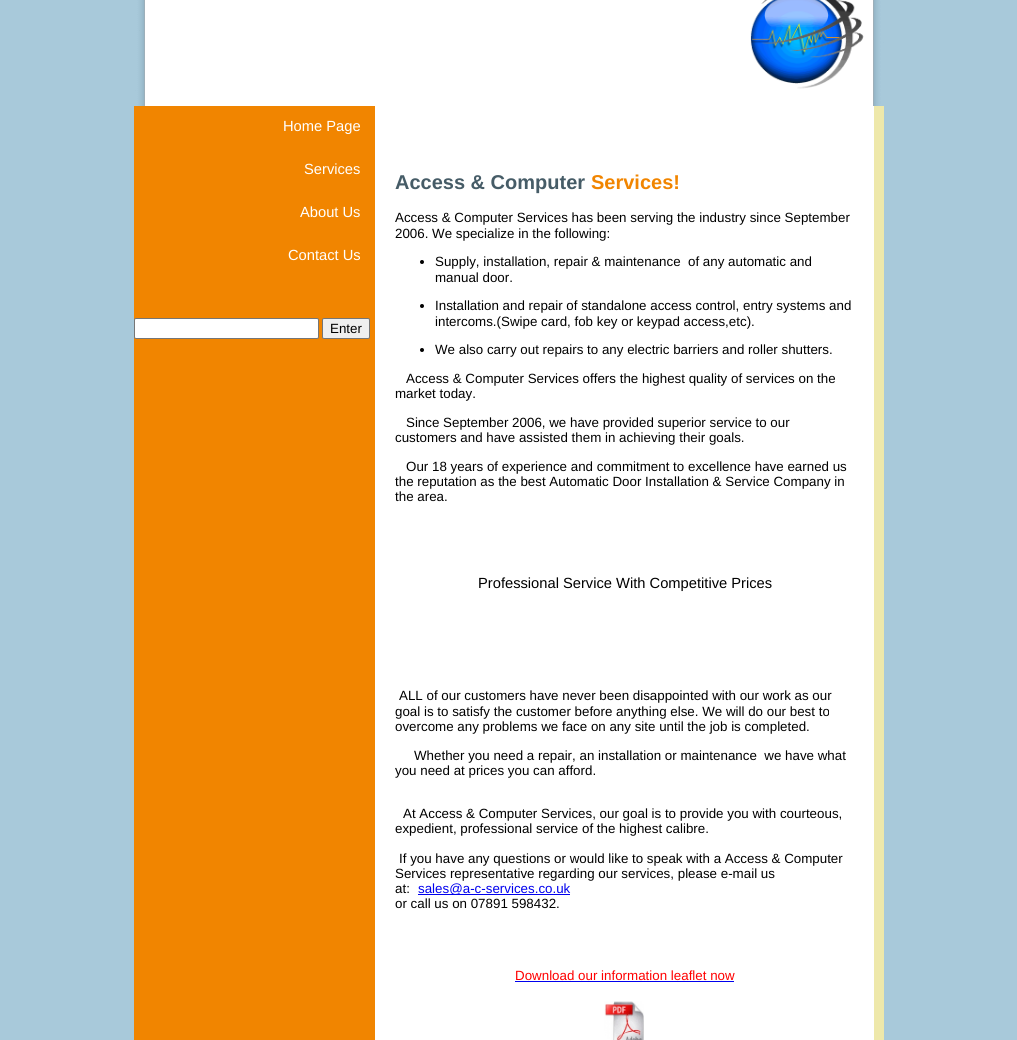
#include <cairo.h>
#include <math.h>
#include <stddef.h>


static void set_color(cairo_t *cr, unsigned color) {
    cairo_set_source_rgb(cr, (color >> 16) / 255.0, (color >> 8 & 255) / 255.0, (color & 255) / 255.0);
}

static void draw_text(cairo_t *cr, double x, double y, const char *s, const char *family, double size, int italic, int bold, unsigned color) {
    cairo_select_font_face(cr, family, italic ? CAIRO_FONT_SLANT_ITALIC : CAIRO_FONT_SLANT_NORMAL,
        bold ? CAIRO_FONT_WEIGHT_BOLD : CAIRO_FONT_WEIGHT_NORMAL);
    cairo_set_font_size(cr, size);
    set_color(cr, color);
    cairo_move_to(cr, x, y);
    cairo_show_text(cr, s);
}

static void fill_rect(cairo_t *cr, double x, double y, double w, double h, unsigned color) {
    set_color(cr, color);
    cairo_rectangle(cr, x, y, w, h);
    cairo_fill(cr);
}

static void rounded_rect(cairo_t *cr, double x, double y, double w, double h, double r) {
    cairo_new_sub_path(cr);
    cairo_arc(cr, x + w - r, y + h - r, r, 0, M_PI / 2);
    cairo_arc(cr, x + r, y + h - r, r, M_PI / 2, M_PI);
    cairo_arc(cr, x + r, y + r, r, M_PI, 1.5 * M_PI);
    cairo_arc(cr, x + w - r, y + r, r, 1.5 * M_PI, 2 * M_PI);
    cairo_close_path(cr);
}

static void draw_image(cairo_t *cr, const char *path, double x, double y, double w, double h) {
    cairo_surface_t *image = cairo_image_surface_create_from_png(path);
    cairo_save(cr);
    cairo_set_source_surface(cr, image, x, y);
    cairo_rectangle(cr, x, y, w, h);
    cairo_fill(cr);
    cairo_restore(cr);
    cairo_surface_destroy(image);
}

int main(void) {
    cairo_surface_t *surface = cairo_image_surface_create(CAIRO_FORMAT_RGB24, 1017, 1040);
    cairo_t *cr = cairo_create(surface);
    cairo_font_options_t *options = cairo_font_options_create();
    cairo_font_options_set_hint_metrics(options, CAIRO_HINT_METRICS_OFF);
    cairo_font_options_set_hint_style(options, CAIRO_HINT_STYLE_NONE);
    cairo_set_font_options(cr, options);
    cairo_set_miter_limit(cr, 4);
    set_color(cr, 0xA8C9DA);
    cairo_paint(cr);
    draw_image(cr, "assets/img1.png", 134, 0, 750, 106);
    draw_image(cr, "assets/img2.png", 750, 0, 114, 89);
    fill_rect(cr, 134, 106, 241, 934, 0xF18500);
    draw_text(cr, 283, 131, "Home Page", "Liberation Sans", 14.7, 0, 0, 0xFFFFFF);
    draw_text(cr, 304, 174, "Services", "Liberation Sans", 14.7, 0, 0, 0xFFFFFF);
    draw_text(cr, 300, 217, "About Us", "Liberation Sans", 14.7, 0, 0, 0xFFFFFF);
    draw_text(cr, 288, 260, "Contact Us", "Liberation Sans", 14.7, 0, 0, 0xFFFFFF);
    rounded_rect(cr, 134.5, 318.5, 184, 20, 1.5);
    cairo_fill_preserve(cr);
    set_color(cr, 0x767676);
    cairo_set_line_width(cr, 1);
    cairo_stroke(cr);
    set_color(cr, 0xEFEFEF);
    rounded_rect(cr, 322.5, 318.5, 47, 20, 1.5);
    cairo_fill_preserve(cr);
    set_color(cr, 0x767676);
    cairo_stroke(cr);
    draw_text(cr, 330, 333, "Enter", "Liberation Sans", 13.35, 0, 0, 0x000000);
    fill_rect(cr, 375, 106, 499, 934, 0xFFFFFF);
    draw_text(cr, 395, 189, "Access & Computer", "Liberation Sans", 20, 0, 1, 0x465C67);
    draw_text(cr, 591, 189, "Services!", "Liberation Sans", 20, 0, 1, 0xF18500);
    draw_text(cr, 395, 222, "Access & Computer Services has been serving the industry since September", "Liberation Sans", 13.35, 0, 0, 0x000000);
    draw_text(cr, 395, 238, "2006. We specialize in the following:", "Liberation Sans", 13.35, 0, 0, 0x000000);
    cairo_new_path(cr);
    cairo_arc(cr, 422, 262, 2, 0, 2 * M_PI);
    cairo_fill(cr);
    draw_text(cr, 435, 266, "Supply, installation, repair & maintenance", "Liberation Sans", 13.35, 0, 0, 0x000000);
    draw_text(cr, 688, 266, "of any automatic and", "Liberation Sans", 13.35, 0, 0, 0x000000);
    draw_text(cr, 435, 282, "manual door.", "Liberation Sans", 13.35, 0, 0, 0x000000);
    cairo_new_path(cr);
    cairo_arc(cr, 422, 306, 2, 0, 2 * M_PI);
    cairo_fill(cr);
    draw_text(cr, 435, 310, "Installation and repair of standalone access control, entry systems and", "Liberation Sans", 13.35, 0, 0, 0x000000);
    draw_text(cr, 435, 326, "intercoms.(Swipe card, fob key or keypad access,etc).", "Liberation Sans", 13.35, 0, 0, 0x000000);
    cairo_new_path(cr);
    cairo_arc(cr, 422, 350, 2, 0, 2 * M_PI);
    cairo_fill(cr);
    draw_text(cr, 435, 354, "We also carry out repairs to any electric barriers and roller shutters.", "Liberation Sans", 13.35, 0, 0, 0x000000);
    draw_text(cr, 406, 383, "Access & Computer Services offers the highest quality of services on the", "Liberation Sans", 13.35, 0, 0, 0x000000);
    draw_text(cr, 395, 398, "market today.", "Liberation Sans", 13.35, 0, 0, 0x000000);
    draw_text(cr, 406, 427, "Since September 2006, we have provided superior service to our", "Liberation Sans", 13.35, 0, 0, 0x000000);
    draw_text(cr, 395, 442, "customers and have assisted them in achieving their goals.", "Liberation Sans", 13.35, 0, 0, 0x000000);
    draw_text(cr, 406, 471, "Our 18 years of experience and commitment to excellence have earned us", "Liberation Sans", 13.35, 0, 0, 0x000000);
    draw_text(cr, 395, 486, "the reputation as the best Automatic Door Installation & Service Company in", "Liberation Sans", 13.35, 0, 0, 0x000000);
    draw_text(cr, 395, 501, "the area.", "Liberation Sans", 13.35, 0, 0, 0x000000);
    draw_text(cr, 478, 588, "Professional Service With Competitive Prices", "Liberation Sans", 14.7, 0, 0, 0x000000);
    draw_text(cr, 399, 700, "ALL of our customers have never been disappointed with our work as our", "Liberation Sans", 13.35, 0, 0, 0x000000);
    draw_text(cr, 395, 716, "goal is to satisfy the customer before anything else. We will do our best to", "Liberation Sans", 13.35, 0, 0, 0x000000);
    draw_text(cr, 395, 731, "overcome any problems we face on any site until the job is completed.", "Liberation Sans", 13.35, 0, 0, 0x000000);
    draw_text(cr, 414, 760, "Whether you need a repair, an installation or maintenance  we have what", "Liberation Sans", 13.35, 0, 0, 0x000000);
    draw_text(cr, 395, 775, "you need at prices you can afford.", "Liberation Sans", 13.35, 0, 0, 0x000000);
    draw_text(cr, 403, 818, "At Access & Computer Services, our goal is to provide you with courteous,", "Liberation Sans", 13.35, 0, 0, 0x000000);
    draw_text(cr, 395, 833, "expedient, professional service of the highest calibre.", "Liberation Sans", 13.35, 0, 0, 0x000000);
    draw_text(cr, 399, 863, "If you have any questions or would like to speak with a Access & Computer", "Liberation Sans", 13.35, 0, 0, 0x000000);
    draw_text(cr, 395, 878, "Services representative regarding our services, please e-mail us", "Liberation Sans", 13.35, 0, 0, 0x000000);
    draw_text(cr, 395, 893, "at:", "Liberation Sans", 13.35, 0, 0, 0x000000);
    fill_rect(cr, 418, 894, 152, 1, 0x0000EE);
    draw_text(cr, 418, 893, "sales@a-c-services.co.uk", "Liberation Sans", 13.35, 0, 0, 0x0000EE);
    draw_text(cr, 395, 908, "or call us on 07891 598432.", "Liberation Sans", 13.35, 0, 0, 0x000000);
    draw_text(cr, 515, 980, "Download our information leaflet now", "Liberation Sans", 13.35, 0, 0, 0xFF0000);
    fill_rect(cr, 515, 981, 219, 1, 0x0000EE);
    draw_image(cr, "assets/img3.png", 604, 1001, 40, 39);
    fill_rect(cr, 874, 106, 10, 934, 0xEEE8AA);
    cairo_surface_write_to_png(surface, "output.png");
    cairo_font_options_destroy(options);
    cairo_destroy(cr);
    cairo_surface_destroy(surface);
    return 0;
}
